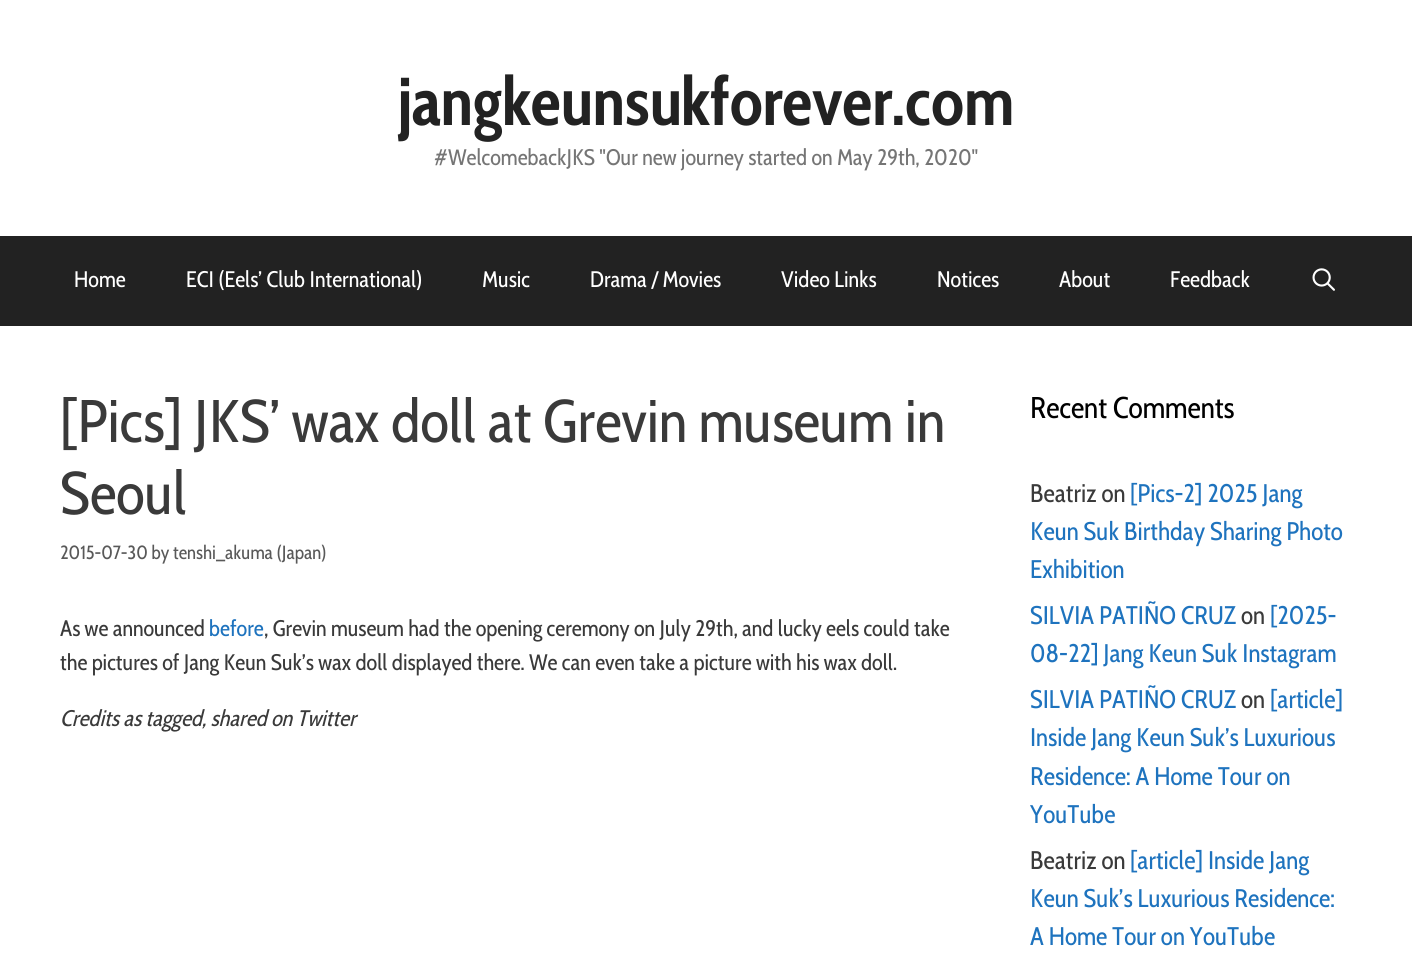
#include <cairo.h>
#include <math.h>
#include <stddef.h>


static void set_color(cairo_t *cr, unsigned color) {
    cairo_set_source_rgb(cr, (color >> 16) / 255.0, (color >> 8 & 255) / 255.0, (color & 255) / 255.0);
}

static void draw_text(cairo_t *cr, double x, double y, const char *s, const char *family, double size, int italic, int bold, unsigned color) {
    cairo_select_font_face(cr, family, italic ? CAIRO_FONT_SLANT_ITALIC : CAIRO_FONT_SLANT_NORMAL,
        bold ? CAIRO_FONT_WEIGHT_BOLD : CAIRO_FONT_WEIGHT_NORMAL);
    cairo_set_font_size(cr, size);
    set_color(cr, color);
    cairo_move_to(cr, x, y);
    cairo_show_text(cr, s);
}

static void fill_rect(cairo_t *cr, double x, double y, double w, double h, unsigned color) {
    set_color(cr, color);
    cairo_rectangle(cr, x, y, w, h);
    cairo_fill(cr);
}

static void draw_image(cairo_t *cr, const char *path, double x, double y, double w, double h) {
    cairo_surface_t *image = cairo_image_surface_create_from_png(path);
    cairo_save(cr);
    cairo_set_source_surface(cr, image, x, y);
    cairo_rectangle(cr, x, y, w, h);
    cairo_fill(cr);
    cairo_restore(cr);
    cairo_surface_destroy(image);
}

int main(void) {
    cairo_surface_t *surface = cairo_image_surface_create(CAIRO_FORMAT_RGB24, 1412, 977);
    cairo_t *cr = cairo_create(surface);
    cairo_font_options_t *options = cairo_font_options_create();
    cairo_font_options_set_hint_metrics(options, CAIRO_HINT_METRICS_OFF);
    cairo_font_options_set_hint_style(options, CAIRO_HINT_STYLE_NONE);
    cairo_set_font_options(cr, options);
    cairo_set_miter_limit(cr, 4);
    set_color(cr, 0xFFFFFF);
    cairo_paint(cr);
    draw_text(cr, 398, 125, "jangkeunsukforever.com", "Cabin Condensed", 67.5, 0, 1, 0x222222);
    draw_text(cr, 434, 165, "#WelcomebackJKS \"Our new journey started on May 29th, 2020\"", "Cabin Condensed", 22.5, 0, 0, 0x757575);
    fill_rect(cr, 0, 236, 1412, 90, 0x222222);
    draw_text(cr, 74, 287, "Home", "Cabin Condensed", 22.5, 0, 0, 0xFFFFFF);
    draw_text(cr, 186, 287, "ECI (Eels’ Club International)", "Cabin Condensed", 22.5, 0, 0, 0xFFFFFF);
    draw_text(cr, 482, 287, "Music", "Cabin Condensed", 22.5, 0, 0, 0xFFFFFF);
    draw_text(cr, 590, 287, "Drama / Movies", "Cabin Condensed", 22.5, 0, 0, 0xFFFFFF);
    draw_text(cr, 781, 287, "Video Links", "Cabin Condensed", 22.5, 0, 0, 0xFFFFFF);
    draw_text(cr, 937, 287, "Notices", "Cabin Condensed", 22.5, 0, 0, 0xFFFFFF);
    draw_text(cr, 1059, 287, "About", "Cabin Condensed", 22.5, 0, 0, 0xFFFFFF);
    draw_text(cr, 1170, 287, "Feedback", "Cabin Condensed", 22.5, 0, 0, 0xFFFFFF);
    draw_image(cr, "assets/img1.png", 1312, 268, 23, 23);
    draw_text(cr, 60, 442, "[Pics] JKS’ wax doll at Grevin museum in", "Cabin Condensed", 60, 0, 0, 0x3A3A3A);
    draw_text(cr, 60, 514, "Seoul", "Cabin Condensed", 60, 0, 0, 0x3A3A3A);
    draw_text(cr, 60, 559, "2015-07-30 by tenshi_akuma (Japan)", "Cabin Condensed", 19.1, 0, 0, 0x595959);
    draw_text(cr, 60, 636, "As we announced", "Cabin Condensed", 22.5, 0, 0, 0x3A3A3A);
    draw_text(cr, 209, 636, "before", "Cabin Condensed", 22.5, 0, 0, 0x1E73BE);
    draw_text(cr, 264, 636, ", Grevin museum had the opening ceremony on July 29th, and lucky eels could take", "Cabin Condensed", 22.5, 0, 0, 0x3A3A3A);
    draw_text(cr, 60, 670, "the pictures of Jang Keun Suk’s wax doll displayed there. We can even take a picture with his wax doll.", "Cabin Condensed", 22.5, 0, 0, 0x3A3A3A);
    draw_text(cr, 60, 726, "Credits as tagged, shared on Twitter", "Cabin Condensed", 22.5, 1, 0, 0x3A3A3A);
    draw_text(cr, 1030, 418, "Recent Comments", "Cabin Condensed", 30, 0, 0, 0x000000);
    draw_text(cr, 1030, 502, "Beatriz on", "Cabin Condensed", 25.5, 0, 0, 0x3A3A3A);
    draw_text(cr, 1130, 502, "[Pics-2] 2025 Jang", "Cabin Condensed", 25.5, 0, 0, 0x1E73BE);
    draw_text(cr, 1030, 540, "Keun Suk Birthday Sharing Photo", "Cabin Condensed", 25.5, 0, 0, 0x1E73BE);
    draw_text(cr, 1030, 578, "Exhibition", "Cabin Condensed", 25.5, 0, 0, 0x1E73BE);
    draw_text(cr, 1030, 624, "SILVIA PATIÑO CRUZ", "Cabin Condensed", 25.5, 0, 0, 0x1E73BE);
    draw_text(cr, 1241, 624, "on", "Cabin Condensed", 25.5, 0, 0, 0x3A3A3A);
    draw_text(cr, 1270, 624, "[2025-", "Cabin Condensed", 25.5, 0, 0, 0x1E73BE);
    draw_text(cr, 1030, 662, "08-22] Jang Keun Suk Instagram", "Cabin Condensed", 25.5, 0, 0, 0x1E73BE);
    draw_text(cr, 1030, 708, "SILVIA PATIÑO CRUZ", "Cabin Condensed", 25.5, 0, 0, 0x1E73BE);
    draw_text(cr, 1241, 708, "on", "Cabin Condensed", 25.5, 0, 0, 0x3A3A3A);
    draw_text(cr, 1270, 708, "[article]", "Cabin Condensed", 25.5, 0, 0, 0x1E73BE);
    draw_text(cr, 1030, 746, "Inside Jang Keun Suk’s Luxurious", "Cabin Condensed", 25.5, 0, 0, 0x1E73BE);
    draw_text(cr, 1030, 785, "Residence: A Home Tour on", "Cabin Condensed", 25.5, 0, 0, 0x1E73BE);
    draw_text(cr, 1030, 823, "YouTube", "Cabin Condensed", 25.5, 0, 0, 0x1E73BE);
    draw_text(cr, 1030, 869, "Beatriz on", "Cabin Condensed", 25.5, 0, 0, 0x3A3A3A);
    draw_text(cr, 1130, 869, "[article] Inside Jang", "Cabin Condensed", 25.5, 0, 0, 0x1E73BE);
    draw_text(cr, 1030, 907, "Keun Suk’s Luxurious Residence:", "Cabin Condensed", 25.5, 0, 0, 0x1E73BE);
    draw_text(cr, 1030, 945, "A Home Tour on YouTube", "Cabin Condensed", 25.5, 0, 0, 0x1E73BE);
    cairo_surface_write_to_png(surface, "output.png");
    cairo_font_options_destroy(options);
    cairo_destroy(cr);
    cairo_surface_destroy(surface);
    return 0;
}
